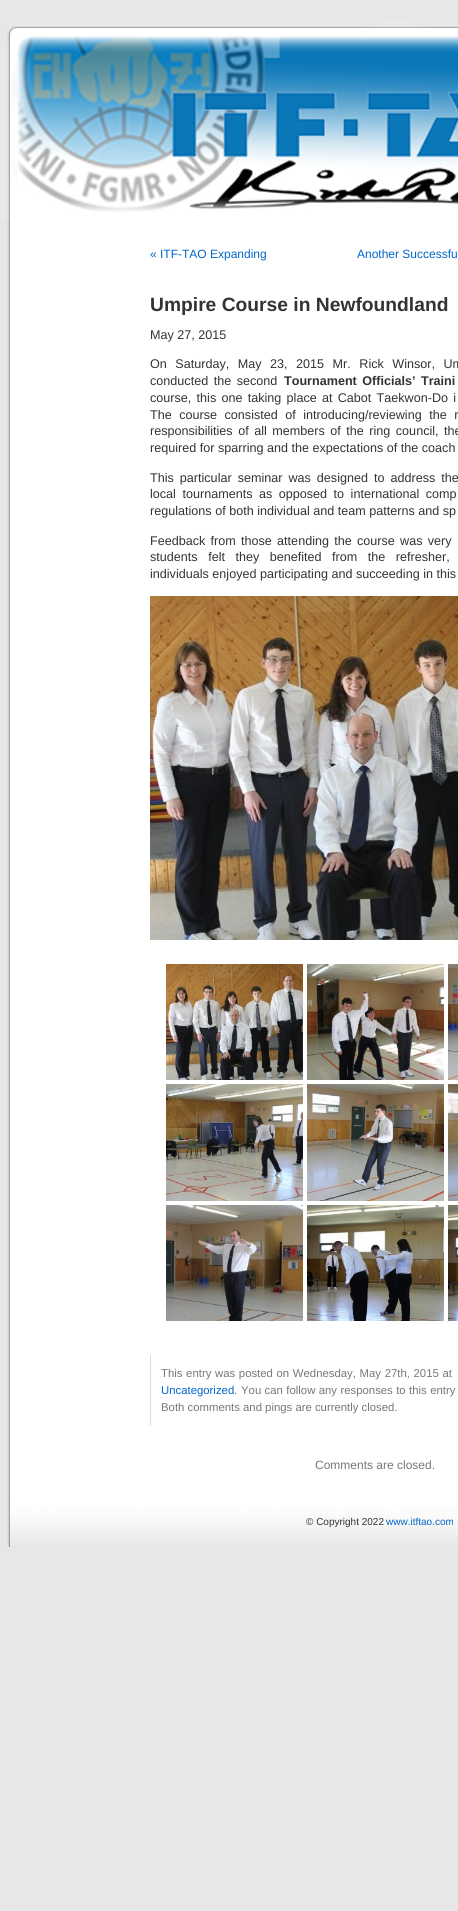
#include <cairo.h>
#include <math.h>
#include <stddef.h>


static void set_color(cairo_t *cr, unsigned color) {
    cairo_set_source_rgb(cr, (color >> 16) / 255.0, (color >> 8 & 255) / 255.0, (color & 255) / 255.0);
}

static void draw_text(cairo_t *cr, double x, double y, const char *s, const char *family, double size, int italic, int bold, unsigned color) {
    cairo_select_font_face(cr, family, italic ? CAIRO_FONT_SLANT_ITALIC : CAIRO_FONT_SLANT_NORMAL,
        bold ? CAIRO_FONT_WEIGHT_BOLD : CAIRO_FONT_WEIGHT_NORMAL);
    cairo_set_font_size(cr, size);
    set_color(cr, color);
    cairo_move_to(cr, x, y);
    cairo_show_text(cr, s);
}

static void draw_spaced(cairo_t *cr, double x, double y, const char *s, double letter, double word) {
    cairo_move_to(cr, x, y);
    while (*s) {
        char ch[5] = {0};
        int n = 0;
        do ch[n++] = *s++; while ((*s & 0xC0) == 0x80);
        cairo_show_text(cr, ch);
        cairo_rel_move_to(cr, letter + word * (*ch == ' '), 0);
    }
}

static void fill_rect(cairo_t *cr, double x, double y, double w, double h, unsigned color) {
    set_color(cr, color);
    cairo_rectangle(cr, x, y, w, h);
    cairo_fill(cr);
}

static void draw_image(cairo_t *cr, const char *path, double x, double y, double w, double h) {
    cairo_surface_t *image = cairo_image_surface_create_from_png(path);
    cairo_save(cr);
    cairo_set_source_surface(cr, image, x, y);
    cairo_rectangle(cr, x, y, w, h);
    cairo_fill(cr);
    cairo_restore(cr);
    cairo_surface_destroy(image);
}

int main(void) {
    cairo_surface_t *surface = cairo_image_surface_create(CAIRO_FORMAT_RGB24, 458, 1911);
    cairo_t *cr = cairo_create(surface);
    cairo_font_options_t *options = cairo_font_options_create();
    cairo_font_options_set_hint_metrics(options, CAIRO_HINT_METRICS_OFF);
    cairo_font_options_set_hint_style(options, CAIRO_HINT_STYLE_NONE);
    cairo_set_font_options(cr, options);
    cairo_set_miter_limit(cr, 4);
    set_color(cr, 0xE7E7E7);
    cairo_paint(cr);
    draw_image(cr, "assets/img1.png", 7, 220, 451, 1276);
    draw_image(cr, "assets/img2.png", 1, 20, 457, 200);
    draw_text(cr, 150, 258, "« ITF-TAO Expanding", "Liberation Sans", 12, 0, 0, 0x0066CC);
    draw_text(cr, 357, 258, "Another Successfu", "Liberation Sans", 12, 0, 0, 0x0066CC);
    draw_text(cr, 150, 311, "Umpire Course in Newfoundland", "Liberation Sans", 19.25, 0, 1, 0x333333);
    draw_text(cr, 150, 339, "May 27, 2015", "Liberation Sans", 12.6, 0, 0, 0x333333);
    draw_spaced(cr, 150, 368, "On Saturday, May 23, 2015 Mr. Rick Winsor, Um", 0, 5);
    draw_spaced(cr, 150, 385, "conducted the second", 0, 2);
    cairo_select_font_face(cr, "Liberation Sans", CAIRO_FONT_SLANT_NORMAL, CAIRO_FONT_WEIGHT_BOLD);
    draw_spaced(cr, 284, 385, "Tournament Officials’ Traini", 0, 2);
    cairo_select_font_face(cr, "Liberation Sans", CAIRO_FONT_SLANT_NORMAL, CAIRO_FONT_WEIGHT_NORMAL);
    draw_spaced(cr, 150, 402, "course, this one taking place at Cabot Taekwon-Do i", 0, 1.75);
    draw_spaced(cr, 150, 419, "The course consisted of introducing/reviewing the r", 0, 4);
    draw_spaced(cr, 150, 435, "responsibilities of all members of the ring council, the", 0, 2);
    draw_text(cr, 150, 452, "required for sparring and the expectations of the coach", "Liberation Sans", 12.6, 0, 0, 0x333333);
    draw_spaced(cr, 150, 482, "This particular seminar was designed to address the", 0, 2.5);
    draw_spaced(cr, 150, 498, "local tournaments as opposed to international comp", 0, 3);
    draw_text(cr, 150, 515, "regulations of both individual and team patterns and sp", "Liberation Sans", 12.6, 0, 0, 0x333333);
    draw_spaced(cr, 150, 545, "Feedback from those attending the course was very", 0, 1.75);
    draw_spaced(cr, 150, 561, "students felt they benefited from the refresher,", 0, 7);
    draw_text(cr, 150, 578, "individuals enjoyed participating and succeeding in this", "Liberation Sans", 12.6, 0, 0, 0x333333);
    draw_image(cr, "assets/img3.png", 150, 596, 308, 344);
    draw_image(cr, "assets/img4.png", 166, 964, 137, 116);
    draw_image(cr, "assets/img5.png", 307, 964, 137, 116);
    draw_image(cr, "assets/img6.png", 448, 964, 10, 116);
    draw_image(cr, "assets/img7.png", 166, 1084, 137, 117);
    draw_image(cr, "assets/img8.png", 307, 1084, 137, 117);
    draw_image(cr, "assets/img9.png", 448, 1084, 10, 117);
    draw_image(cr, "assets/img10.png", 166, 1205, 137, 116);
    draw_image(cr, "assets/img11.png", 307, 1205, 137, 116);
    draw_image(cr, "assets/img12.png", 448, 1205, 10, 116);
    fill_rect(cr, 150, 1355, 1, 71, 0xDDDDDD);
    cairo_set_font_size(cr, 11.35);
    set_color(cr, 0x777777);
    draw_spaced(cr, 161, 1377, "This entry was posted on Wednesday, May 27th, 2015 at", 0, 0.5);
    draw_text(cr, 161, 1394, "Uncategorized", "Liberation Sans", 11.35, 0, 0, 0x0066CC);
    draw_text(cr, 234, 1394, ".", "Liberation Sans", 11.35, 0, 0, 0x777777);
    draw_spaced(cr, 241, 1394, "You can follow any responses to this entry", 0, 0.25);
    draw_text(cr, 161, 1411, "Both comments and pings are currently closed.", "Liberation Sans", 11.35, 0, 0, 0x777777);
    draw_text(cr, 315, 1469, "Comments are closed.", "Liberation Sans", 12, 0, 0, 0x777777);
    draw_image(cr, "assets/img13.png", 7, 1496, 451, 51);
    draw_text(cr, 306, 1525, "© Copyright 2022", "Liberation Sans", 10, 0, 0, 0x333333);
    draw_text(cr, 386, 1525, "www.itftao.com", "Liberation Sans", 10, 0, 0, 0x0066CC);
    cairo_surface_write_to_png(surface, "output.png");
    cairo_font_options_destroy(options);
    cairo_destroy(cr);
    cairo_surface_destroy(surface);
    return 0;
}
